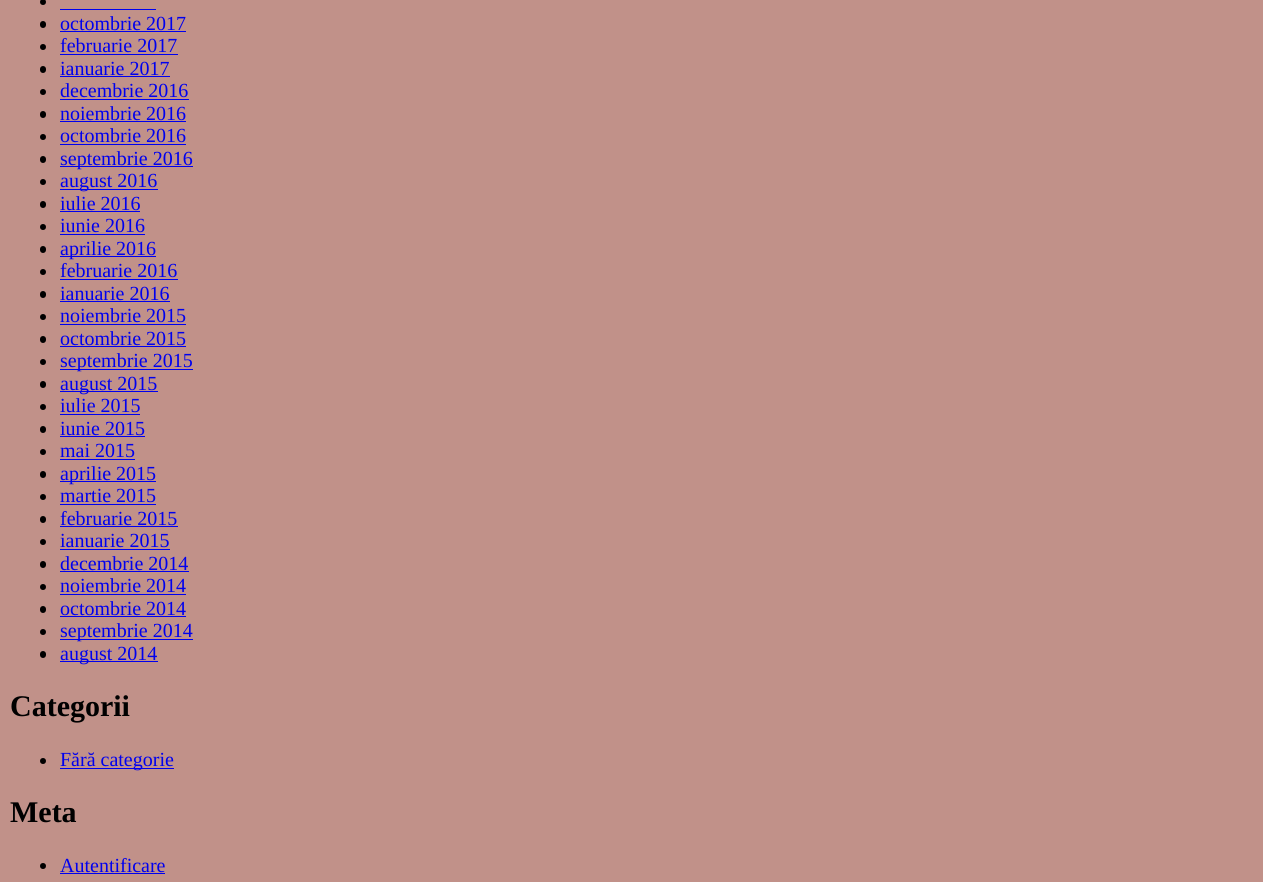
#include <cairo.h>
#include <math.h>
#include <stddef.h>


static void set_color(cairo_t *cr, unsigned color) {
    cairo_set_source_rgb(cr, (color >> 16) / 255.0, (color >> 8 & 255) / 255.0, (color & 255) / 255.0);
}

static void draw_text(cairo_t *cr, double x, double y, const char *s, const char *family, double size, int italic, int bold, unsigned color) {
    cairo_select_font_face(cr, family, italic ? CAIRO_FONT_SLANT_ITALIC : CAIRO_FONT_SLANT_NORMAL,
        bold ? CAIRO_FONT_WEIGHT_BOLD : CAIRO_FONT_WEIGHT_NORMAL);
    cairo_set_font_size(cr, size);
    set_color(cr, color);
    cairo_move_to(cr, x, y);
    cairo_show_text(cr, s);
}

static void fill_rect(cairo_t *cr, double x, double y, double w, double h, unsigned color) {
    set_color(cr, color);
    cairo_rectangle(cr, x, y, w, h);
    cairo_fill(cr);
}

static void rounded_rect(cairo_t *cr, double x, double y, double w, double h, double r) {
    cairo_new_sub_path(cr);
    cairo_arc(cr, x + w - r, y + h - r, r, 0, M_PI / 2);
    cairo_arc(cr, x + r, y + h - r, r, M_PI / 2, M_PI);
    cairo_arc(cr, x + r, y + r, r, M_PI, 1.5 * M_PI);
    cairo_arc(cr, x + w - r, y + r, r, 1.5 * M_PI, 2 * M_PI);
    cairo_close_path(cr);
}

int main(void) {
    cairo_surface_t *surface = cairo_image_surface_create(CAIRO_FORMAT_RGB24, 1263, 882);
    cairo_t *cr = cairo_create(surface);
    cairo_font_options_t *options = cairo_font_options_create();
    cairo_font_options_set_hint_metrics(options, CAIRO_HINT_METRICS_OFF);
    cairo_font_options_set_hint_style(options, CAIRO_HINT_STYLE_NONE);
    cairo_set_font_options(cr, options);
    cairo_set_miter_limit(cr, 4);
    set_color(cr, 0xC19189);
    cairo_paint(cr);
    set_color(cr, 0x000000);
    cairo_arc(cr, 43, 2, 3, 0, 2 * M_PI);
    cairo_fill(cr);
    fill_rect(cr, 60, 9, 96, 1, 0x0000EE);
    set_color(cr, 0x000000);
    rounded_rect(cr, 40, 21, 6, 7, 3);
    cairo_fill(cr);
    draw_text(cr, 60, 30, "octombrie 2017", "Liberation Serif", 20, 0, 0, 0x0000EE);
    fill_rect(cr, 60, 31, 126, 1, 0x0000EE);
    set_color(cr, 0x000000);
    cairo_new_path(cr);
    cairo_arc(cr, 43, 47, 3, 0, 2 * M_PI);
    cairo_fill(cr);
    draw_text(cr, 60, 52, "februarie 2017", "Liberation Serif", 20, 0, 0, 0x0000EE);
    fill_rect(cr, 60, 54, 118, 1, 0x0000EE);
    set_color(cr, 0x000000);
    rounded_rect(cr, 40, 66, 6, 7, 3);
    cairo_fill(cr);
    draw_text(cr, 60, 75, "ianuarie 2017", "Liberation Serif", 20, 0, 0, 0x0000EE);
    fill_rect(cr, 60, 76, 110, 1, 0x0000EE);
    set_color(cr, 0x000000);
    cairo_new_path(cr);
    cairo_arc(cr, 43, 92, 3, 0, 2 * M_PI);
    cairo_fill(cr);
    draw_text(cr, 60, 97, "decembrie 2016", "Liberation Serif", 20, 0, 0, 0x0000EE);
    fill_rect(cr, 60, 99, 129, 1, 0x0000EE);
    set_color(cr, 0x000000);
    rounded_rect(cr, 40, 111, 6, 7, 3);
    cairo_fill(cr);
    draw_text(cr, 60, 120, "noiembrie 2016", "Liberation Serif", 20, 0, 0, 0x0000EE);
    fill_rect(cr, 60, 121, 126, 1, 0x0000EE);
    set_color(cr, 0x000000);
    cairo_new_path(cr);
    cairo_arc(cr, 43, 137, 3, 0, 2 * M_PI);
    cairo_fill(cr);
    draw_text(cr, 60, 142, "octombrie 2016", "Liberation Serif", 20, 0, 0, 0x0000EE);
    fill_rect(cr, 60, 144, 126, 1, 0x0000EE);
    set_color(cr, 0x000000);
    rounded_rect(cr, 40, 156, 6, 7, 3);
    cairo_fill(cr);
    fill_rect(cr, 60, 166, 133, 1, 0x0000EE);
    draw_text(cr, 60, 165, "septembrie 2016", "Liberation Serif", 20, 0, 0, 0x0000EE);
    set_color(cr, 0x000000);
    cairo_new_path(cr);
    cairo_arc(cr, 43, 182, 3, 0, 2 * M_PI);
    cairo_fill(cr);
    fill_rect(cr, 60, 189, 98, 1, 0x0000EE);
    draw_text(cr, 60, 187, "august 2016", "Liberation Serif", 20, 0, 0, 0x0000EE);
    set_color(cr, 0x000000);
    rounded_rect(cr, 40, 201, 6, 7, 3);
    cairo_fill(cr);
    draw_text(cr, 60, 210, "iulie 2016", "Liberation Serif", 20, 0, 0, 0x0000EE);
    fill_rect(cr, 60, 211, 80, 1, 0x0000EE);
    set_color(cr, 0x000000);
    cairo_new_path(cr);
    cairo_arc(cr, 43, 227, 3, 0, 2 * M_PI);
    cairo_fill(cr);
    draw_text(cr, 60, 232, "iunie 2016", "Liberation Serif", 20, 0, 0, 0x0000EE);
    fill_rect(cr, 60, 234, 85, 1, 0x0000EE);
    set_color(cr, 0x000000);
    rounded_rect(cr, 40, 246, 6, 7, 3);
    cairo_fill(cr);
    fill_rect(cr, 60, 256, 96, 1, 0x0000EE);
    draw_text(cr, 60, 255, "aprilie 2016", "Liberation Serif", 20, 0, 0, 0x0000EE);
    set_color(cr, 0x000000);
    cairo_new_path(cr);
    cairo_arc(cr, 43, 272, 3, 0, 2 * M_PI);
    cairo_fill(cr);
    draw_text(cr, 60, 277, "februarie 2016", "Liberation Serif", 20, 0, 0, 0x0000EE);
    fill_rect(cr, 60, 279, 118, 1, 0x0000EE);
    set_color(cr, 0x000000);
    rounded_rect(cr, 40, 291, 6, 7, 3);
    cairo_fill(cr);
    draw_text(cr, 60, 300, "ianuarie 2016", "Liberation Serif", 20, 0, 0, 0x0000EE);
    fill_rect(cr, 60, 301, 110, 1, 0x0000EE);
    set_color(cr, 0x000000);
    cairo_new_path(cr);
    cairo_arc(cr, 43, 317, 3, 0, 2 * M_PI);
    cairo_fill(cr);
    draw_text(cr, 60, 322, "noiembrie 2015", "Liberation Serif", 20, 0, 0, 0x0000EE);
    fill_rect(cr, 60, 324, 126, 1, 0x0000EE);
    set_color(cr, 0x000000);
    rounded_rect(cr, 40, 336, 6, 7, 3);
    cairo_fill(cr);
    draw_text(cr, 60, 345, "octombrie 2015", "Liberation Serif", 20, 0, 0, 0x0000EE);
    fill_rect(cr, 60, 346, 126, 1, 0x0000EE);
    set_color(cr, 0x000000);
    cairo_new_path(cr);
    cairo_arc(cr, 43, 362, 3, 0, 2 * M_PI);
    cairo_fill(cr);
    fill_rect(cr, 60, 369, 133, 1, 0x0000EE);
    draw_text(cr, 60, 367, "septembrie 2015", "Liberation Serif", 20, 0, 0, 0x0000EE);
    set_color(cr, 0x000000);
    rounded_rect(cr, 40, 381, 6, 7, 3);
    cairo_fill(cr);
    fill_rect(cr, 60, 391, 98, 1, 0x0000EE);
    draw_text(cr, 60, 390, "august 2015", "Liberation Serif", 20, 0, 0, 0x0000EE);
    set_color(cr, 0x000000);
    cairo_new_path(cr);
    cairo_arc(cr, 43, 407, 3, 0, 2 * M_PI);
    cairo_fill(cr);
    draw_text(cr, 60, 412, "iulie 2015", "Liberation Serif", 20, 0, 0, 0x0000EE);
    fill_rect(cr, 60, 414, 80, 1, 0x0000EE);
    set_color(cr, 0x000000);
    rounded_rect(cr, 40, 426, 6, 7, 3);
    cairo_fill(cr);
    draw_text(cr, 60, 435, "iunie 2015", "Liberation Serif", 20, 0, 0, 0x0000EE);
    fill_rect(cr, 60, 436, 85, 1, 0x0000EE);
    set_color(cr, 0x000000);
    cairo_new_path(cr);
    cairo_arc(cr, 43, 452, 3, 0, 2 * M_PI);
    cairo_fill(cr);
    draw_text(cr, 60, 457, "mai 2015", "Liberation Serif", 20, 0, 0, 0x0000EE);
    fill_rect(cr, 60, 459, 75, 1, 0x0000EE);
    set_color(cr, 0x000000);
    rounded_rect(cr, 40, 471, 6, 7, 3);
    cairo_fill(cr);
    fill_rect(cr, 60, 481, 96, 1, 0x0000EE);
    draw_text(cr, 60, 480, "aprilie 2015", "Liberation Serif", 20, 0, 0, 0x0000EE);
    set_color(cr, 0x000000);
    cairo_new_path(cr);
    cairo_arc(cr, 43, 497, 3, 0, 2 * M_PI);
    cairo_fill(cr);
    draw_text(cr, 60, 502, "martie 2015", "Liberation Serif", 20, 0, 0, 0x0000EE);
    fill_rect(cr, 60, 504, 96, 1, 0x0000EE);
    set_color(cr, 0x000000);
    rounded_rect(cr, 40, 516, 6, 7, 3);
    cairo_fill(cr);
    draw_text(cr, 60, 525, "februarie 2015", "Liberation Serif", 20, 0, 0, 0x0000EE);
    fill_rect(cr, 60, 526, 118, 1, 0x0000EE);
    set_color(cr, 0x000000);
    cairo_new_path(cr);
    cairo_arc(cr, 43, 542, 3, 0, 2 * M_PI);
    cairo_fill(cr);
    draw_text(cr, 60, 547, "ianuarie 2015", "Liberation Serif", 20, 0, 0, 0x0000EE);
    fill_rect(cr, 60, 549, 110, 1, 0x0000EE);
    set_color(cr, 0x000000);
    rounded_rect(cr, 40, 561, 6, 7, 3);
    cairo_fill(cr);
    draw_text(cr, 60, 570, "decembrie 2014", "Liberation Serif", 20, 0, 0, 0x0000EE);
    fill_rect(cr, 60, 571, 129, 1, 0x0000EE);
    set_color(cr, 0x000000);
    cairo_new_path(cr);
    cairo_arc(cr, 43, 587, 3, 0, 2 * M_PI);
    cairo_fill(cr);
    draw_text(cr, 60, 592, "noiembrie 2014", "Liberation Serif", 20, 0, 0, 0x0000EE);
    fill_rect(cr, 60, 594, 126, 1, 0x0000EE);
    set_color(cr, 0x000000);
    rounded_rect(cr, 40, 606, 6, 7, 3);
    cairo_fill(cr);
    draw_text(cr, 60, 615, "octombrie 2014", "Liberation Serif", 20, 0, 0, 0x0000EE);
    fill_rect(cr, 60, 616, 126, 1, 0x0000EE);
    set_color(cr, 0x000000);
    cairo_new_path(cr);
    cairo_arc(cr, 43, 632, 3, 0, 2 * M_PI);
    cairo_fill(cr);
    fill_rect(cr, 60, 639, 133, 1, 0x0000EE);
    draw_text(cr, 60, 637, "septembrie 2014", "Liberation Serif", 20, 0, 0, 0x0000EE);
    set_color(cr, 0x000000);
    rounded_rect(cr, 40, 651, 6, 7, 3);
    cairo_fill(cr);
    fill_rect(cr, 60, 661, 98, 1, 0x0000EE);
    draw_text(cr, 60, 660, "august 2014", "Liberation Serif", 20, 0, 0, 0x0000EE);
    draw_text(cr, 10, 716, "Categorii", "Liberation Serif", 30, 0, 1, 0x000000);
    cairo_new_path(cr);
    cairo_arc(cr, 43, 761, 3, 0, 2 * M_PI);
    cairo_fill(cr);
    fill_rect(cr, 60, 768, 114, 1, 0x0000EE);
    draw_text(cr, 60, 766, "Fără categorie", "Liberation Serif", 20, 0, 0, 0x0000EE);
    draw_text(cr, 10, 822, "Meta", "Liberation Serif", 30, 0, 1, 0x000000);
    cairo_new_path(cr);
    cairo_arc(cr, 43, 866, 3, 0, 2 * M_PI);
    cairo_fill(cr);
    draw_text(cr, 60, 872, "Autentificare", "Liberation Serif", 20, 0, 0, 0x0000EE);
    fill_rect(cr, 60, 873, 105, 1, 0x0000EE);
    cairo_surface_write_to_png(surface, "output.png");
    cairo_font_options_destroy(options);
    cairo_destroy(cr);
    cairo_surface_destroy(surface);
    return 0;
}
